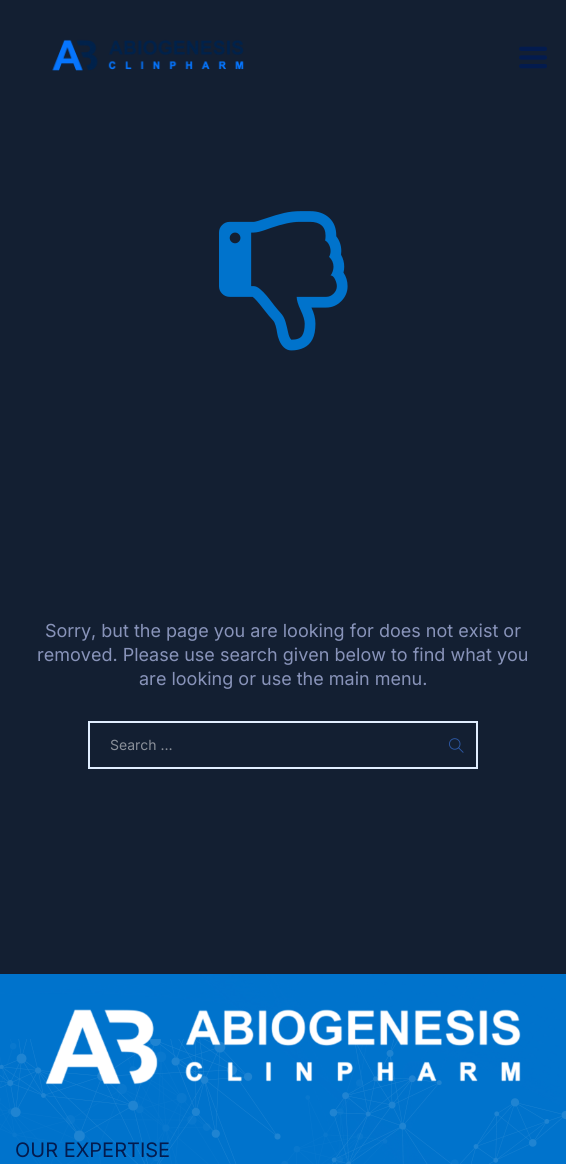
#include <cairo.h>
#include <math.h>
#include <stddef.h>


static void set_color(cairo_t *cr, unsigned color) {
    cairo_set_source_rgb(cr, (color >> 16) / 255.0, (color >> 8 & 255) / 255.0, (color & 255) / 255.0);
}

static void draw_text(cairo_t *cr, double x, double y, const char *s, const char *family, double size, int italic, int bold, unsigned color) {
    cairo_select_font_face(cr, family, italic ? CAIRO_FONT_SLANT_ITALIC : CAIRO_FONT_SLANT_NORMAL,
        bold ? CAIRO_FONT_WEIGHT_BOLD : CAIRO_FONT_WEIGHT_NORMAL);
    cairo_set_font_size(cr, size);
    set_color(cr, color);
    cairo_move_to(cr, x, y);
    cairo_show_text(cr, s);
}

static void fill_rect(cairo_t *cr, double x, double y, double w, double h, unsigned color) {
    set_color(cr, color);
    cairo_rectangle(cr, x, y, w, h);
    cairo_fill(cr);
}

static void draw_image(cairo_t *cr, const char *path, double x, double y, double w, double h) {
    cairo_surface_t *image = cairo_image_surface_create_from_png(path);
    cairo_save(cr);
    cairo_set_source_surface(cr, image, x, y);
    cairo_rectangle(cr, x, y, w, h);
    cairo_fill(cr);
    cairo_restore(cr);
    cairo_surface_destroy(image);
}

int main(void) {
    cairo_surface_t *surface = cairo_image_surface_create(CAIRO_FORMAT_RGB24, 566, 1164);
    cairo_t *cr = cairo_create(surface);
    cairo_font_options_t *options = cairo_font_options_create();
    cairo_font_options_set_hint_metrics(options, CAIRO_HINT_METRICS_OFF);
    cairo_font_options_set_hint_style(options, CAIRO_HINT_STYLE_NONE);
    cairo_set_font_options(cr, options);
    cairo_set_miter_limit(cr, 4);
    set_color(cr, 0x0073CC);
    cairo_paint(cr);
    fill_rect(cr, 0, 0, 566, 974, 0x131F32);
    draw_image(cr, "assets/img1.png", 52, 39, 192, 32);
    draw_image(cr, "assets/img2.png", 519, 46, 28, 23);
    draw_image(cr, "assets/img3.png", 219, 211, 129, 140);
    draw_text(cr, 45, 637, "Sorry, but the page you are looking for does not exist or", "Inter", 18, 0, 0, 0x8893B9);
    draw_text(cr, 37, 661, "removed. Please use search given below to find what you", "Inter", 18, 0, 0, 0x8893B9);
    draw_text(cr, 139, 685, "are looking or use the main menu.", "Inter", 18, 0, 0, 0x8893B9);
    cairo_rectangle(cr, 89, 722, 388, 46);
    set_color(cr, 0xE1EEFF);
    cairo_stroke(cr);
    draw_text(cr, 110, 750, "Search …", "Inter", 14, 0, 0, 0x898F99);
    draw_image(cr, "assets/img4.png", 449, 738, 15, 15);
    draw_image(cr, "assets/img5.png", 0, 974, 566, 190);
    draw_image(cr, "assets/img6.png", 0, 1039, 566, 125);
    draw_image(cr, "assets/img7.png", 45, 1009, 476, 76);
    draw_text(cr, 15, 1157, "OUR EXPERTISE", "Inter", 20, 0, 0, 0x031B4E);
    cairo_surface_write_to_png(surface, "output.png");
    cairo_font_options_destroy(options);
    cairo_destroy(cr);
    cairo_surface_destroy(surface);
    return 0;
}
